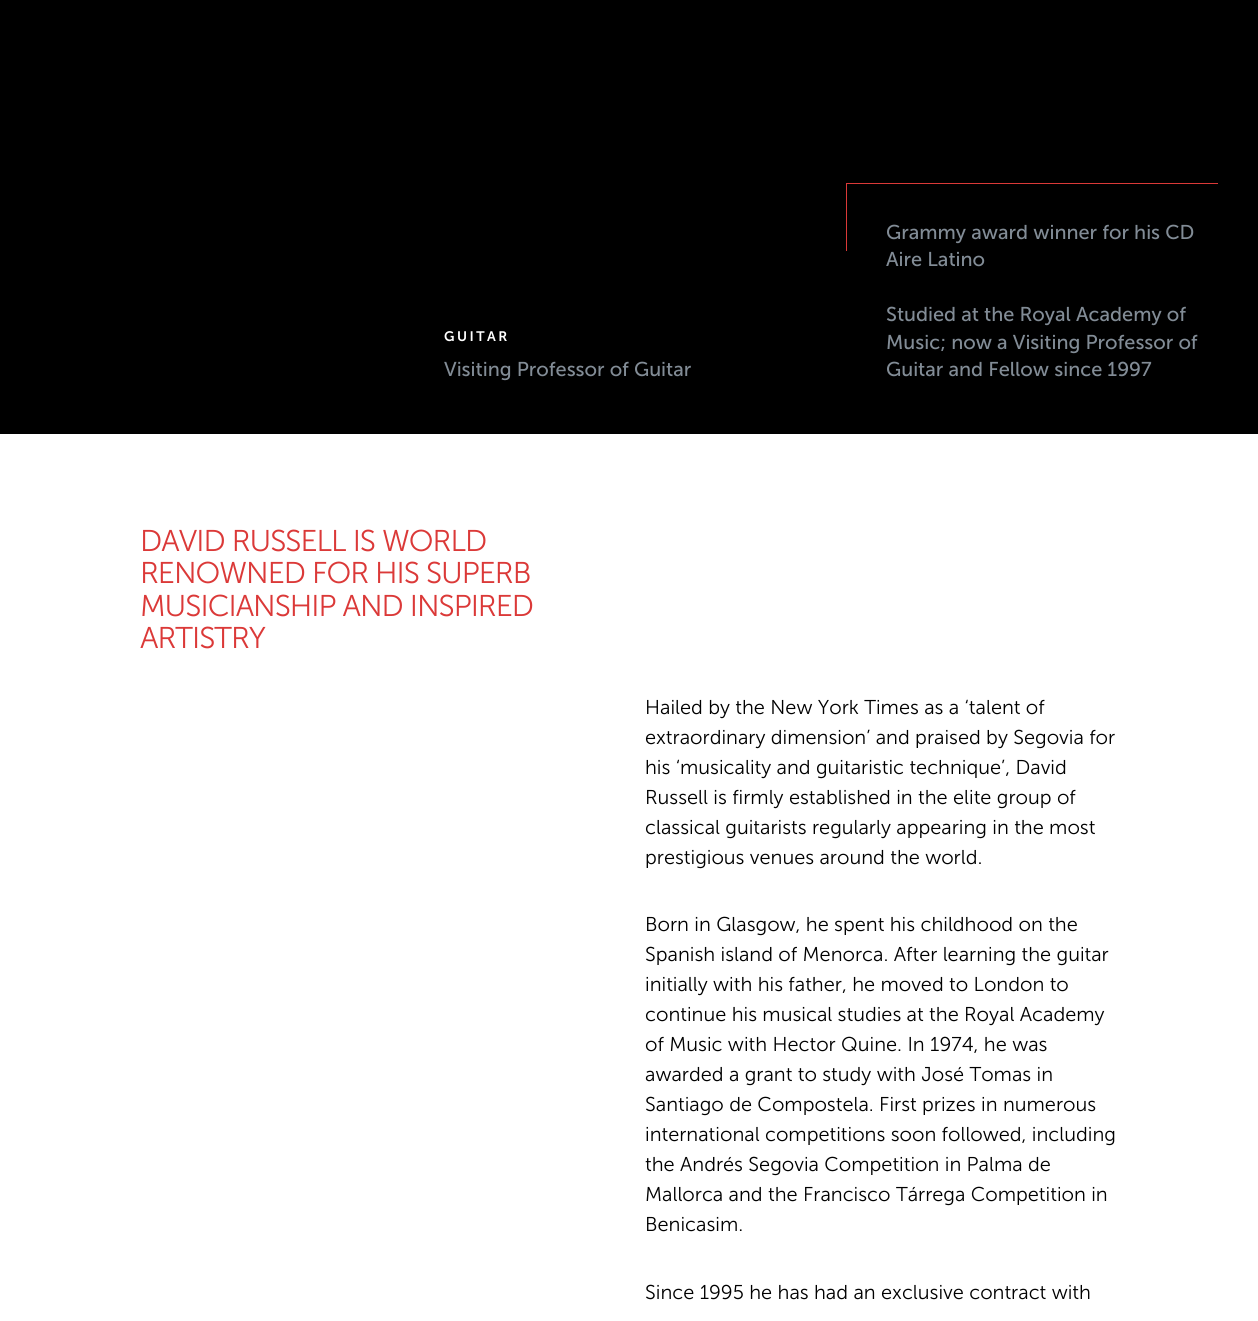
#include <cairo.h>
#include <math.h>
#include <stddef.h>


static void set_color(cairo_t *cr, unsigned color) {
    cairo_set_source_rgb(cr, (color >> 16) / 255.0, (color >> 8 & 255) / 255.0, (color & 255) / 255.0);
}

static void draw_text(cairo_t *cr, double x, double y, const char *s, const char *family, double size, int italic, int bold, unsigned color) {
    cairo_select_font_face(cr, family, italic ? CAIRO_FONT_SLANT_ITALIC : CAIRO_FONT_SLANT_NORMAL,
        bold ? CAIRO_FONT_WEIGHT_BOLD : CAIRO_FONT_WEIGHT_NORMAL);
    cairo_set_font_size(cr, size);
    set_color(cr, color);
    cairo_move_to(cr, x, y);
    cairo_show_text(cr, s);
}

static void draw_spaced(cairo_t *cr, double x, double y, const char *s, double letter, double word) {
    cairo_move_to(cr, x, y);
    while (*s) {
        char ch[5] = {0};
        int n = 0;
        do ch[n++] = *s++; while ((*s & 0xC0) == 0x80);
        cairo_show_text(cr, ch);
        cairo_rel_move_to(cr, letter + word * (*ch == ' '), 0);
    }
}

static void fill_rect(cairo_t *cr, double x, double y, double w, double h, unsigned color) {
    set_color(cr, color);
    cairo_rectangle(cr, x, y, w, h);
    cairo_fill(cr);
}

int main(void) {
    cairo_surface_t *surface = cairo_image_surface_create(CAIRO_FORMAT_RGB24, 1258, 1321);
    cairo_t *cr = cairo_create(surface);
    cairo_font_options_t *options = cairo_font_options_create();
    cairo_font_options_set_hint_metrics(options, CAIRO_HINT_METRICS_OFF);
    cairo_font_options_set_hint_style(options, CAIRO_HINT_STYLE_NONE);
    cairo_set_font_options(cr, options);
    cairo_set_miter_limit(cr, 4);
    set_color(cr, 0xFFFFFF);
    cairo_paint(cr);
    fill_rect(cr, 0, 0, 1258, 434, 0x000000);
    cairo_select_font_face(cr, "Museo Sans SemiBold", CAIRO_FONT_SLANT_NORMAL, CAIRO_FONT_WEIGHT_NORMAL);
    cairo_set_font_size(cr, 13.75);
    set_color(cr, 0xFFFFFF);
    draw_spaced(cr, 444, 341, "GUITAR", 2.5, 0);
    draw_text(cr, 444, 376, "Visiting Professor of Guitar", "Museo Sans", 20, 0, 0, 0x828C96);
    fill_rect(cr, 846, 183, 1, 68, 0xDB3938);
    fill_rect(cr, 846, 183, 372, 1, 0xDB3938);
    draw_text(cr, 886, 239, "Grammy award winner for his CD", "Museo Sans", 20, 0, 0, 0x828C96);
    draw_text(cr, 886, 266, "Aire Latino", "Museo Sans", 20, 0, 0, 0x828C96);
    draw_text(cr, 886, 321, "Studied at the Royal Academy of", "Museo Sans", 20, 0, 0, 0x828C96);
    draw_text(cr, 886, 349, "Music; now a Visiting Professor of", "Museo Sans", 20, 0, 0, 0x828C96);
    draw_text(cr, 886, 376, "Guitar and Fellow since 1997", "Museo Sans", 20, 0, 0, 0x828C96);
    cairo_select_font_face(cr, "Museo Sans Light", CAIRO_FONT_SLANT_NORMAL, CAIRO_FONT_WEIGHT_NORMAL);
    cairo_set_font_size(cr, 30);
    set_color(cr, 0xDB3938);
    draw_spaced(cr, 140, 551, "DAVID RUSSELL IS WORLD", -1, 0);
    draw_spaced(cr, 140, 583, "RENOWNED FOR HIS SUPERB", -1, 0);
    draw_spaced(cr, 140, 616, "MUSICIANSHIP AND INSPIRED", -1, 0);
    draw_spaced(cr, 140, 648, "ARTISTRY", -1, 0);
    draw_text(cr, 645, 714, "Hailed by the New York Times as a ‘talent of", "Museo Sans Light", 20, 0, 0, 0x000000);
    draw_text(cr, 645, 744, "extraordinary dimension’ and praised by Segovia for", "Museo Sans Light", 20, 0, 0, 0x000000);
    draw_text(cr, 645, 774, "his ‘musicality and guitaristic technique’, David", "Museo Sans Light", 20, 0, 0, 0x000000);
    draw_text(cr, 645, 804, "Russell is firmly established in the elite group of", "Museo Sans Light", 20, 0, 0, 0x000000);
    draw_text(cr, 645, 834, "classical guitarists regularly appearing in the most", "Museo Sans Light", 20, 0, 0, 0x000000);
    draw_text(cr, 645, 864, "prestigious venues around the world.", "Museo Sans Light", 20, 0, 0, 0x000000);
    draw_text(cr, 645, 931, "Born in Glasgow, he spent his childhood on the", "Museo Sans Light", 20, 0, 0, 0x000000);
    draw_text(cr, 645, 961, "Spanish island of Menorca. After learning the guitar", "Museo Sans Light", 20, 0, 0, 0x000000);
    draw_text(cr, 645, 991, "initially with his father, he moved to London to", "Museo Sans Light", 20, 0, 0, 0x000000);
    draw_text(cr, 645, 1021, "continue his musical studies at the Royal Academy", "Museo Sans Light", 20, 0, 0, 0x000000);
    draw_text(cr, 645, 1051, "of Music with Hector Quine. In 1974, he was", "Museo Sans Light", 20, 0, 0, 0x000000);
    draw_text(cr, 645, 1081, "awarded a grant to study with José Tomas in", "Museo Sans Light", 20, 0, 0, 0x000000);
    draw_text(cr, 645, 1111, "Santiago de Compostela. First prizes in numerous", "Museo Sans Light", 20, 0, 0, 0x000000);
    draw_text(cr, 645, 1141, "international competitions soon followed, including", "Museo Sans Light", 20, 0, 0, 0x000000);
    draw_text(cr, 645, 1171, "the Andrés Segovia Competition in Palma de", "Museo Sans Light", 20, 0, 0, 0x000000);
    draw_text(cr, 645, 1201, "Mallorca and the Francisco Tárrega Competition in", "Museo Sans Light", 20, 0, 0, 0x000000);
    draw_text(cr, 645, 1231, "Benicasim.", "Museo Sans Light", 20, 0, 0, 0x000000);
    draw_text(cr, 645, 1299, "Since 1995 he has had an exclusive contract with", "Museo Sans Light", 20, 0, 0, 0x000000);
    cairo_surface_write_to_png(surface, "output.png");
    cairo_font_options_destroy(options);
    cairo_destroy(cr);
    cairo_surface_destroy(surface);
    return 0;
}
